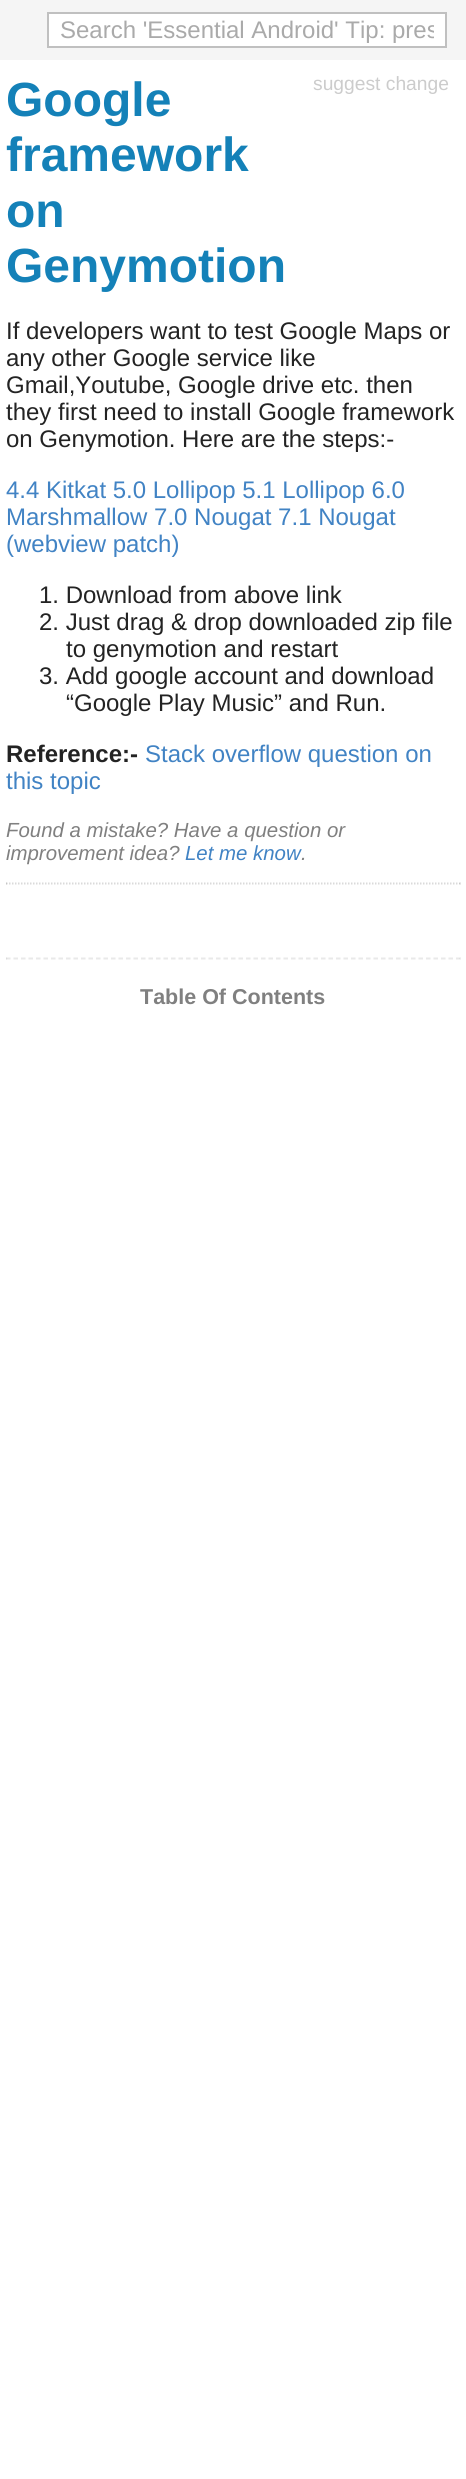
#include <cairo.h>
#include <math.h>
#include <stddef.h>


static void set_color(cairo_t *cr, unsigned color) {
    cairo_set_source_rgb(cr, (color >> 16) / 255.0, (color >> 8 & 255) / 255.0, (color & 255) / 255.0);
}

static void draw_text(cairo_t *cr, double x, double y, const char *s, const char *family, double size, int italic, int bold, unsigned color) {
    cairo_select_font_face(cr, family, italic ? CAIRO_FONT_SLANT_ITALIC : CAIRO_FONT_SLANT_NORMAL,
        bold ? CAIRO_FONT_WEIGHT_BOLD : CAIRO_FONT_WEIGHT_NORMAL);
    cairo_set_font_size(cr, size);
    set_color(cr, color);
    cairo_move_to(cr, x, y);
    cairo_show_text(cr, s);
}

static void fill_rect(cairo_t *cr, double x, double y, double w, double h, unsigned color) {
    set_color(cr, color);
    cairo_rectangle(cr, x, y, w, h);
    cairo_fill(cr);
}

int main(void) {
    cairo_surface_t *surface = cairo_image_surface_create(CAIRO_FORMAT_RGB24, 466, 2479);
    cairo_t *cr = cairo_create(surface);
    cairo_font_options_t *options = cairo_font_options_create();
    cairo_font_options_set_hint_metrics(options, CAIRO_HINT_METRICS_OFF);
    cairo_font_options_set_hint_style(options, CAIRO_HINT_STYLE_NONE);
    cairo_set_font_options(cr, options);
    cairo_set_miter_limit(cr, 4);
    set_color(cr, 0xFFFFFF);
    cairo_paint(cr);
    fill_rect(cr, 0, 0, 466, 60, 0xF5F5F5);
    set_color(cr, 0xFFFFFF);
    cairo_rectangle(cr, 48, 13, 398, 34);
    cairo_fill_preserve(cr);
    set_color(cr, 0xC0C0C0);
    cairo_stroke(cr);
    cairo_save(cr);
    cairo_rectangle(cr, 60, 17, 374, 27);
    cairo_clip(cr);
    draw_text(cr, 60, 38, "Search 'Essential Android' Tip: pres", "Liberation Sans", 24, 0, 0, 0xAAAAAA);
    cairo_restore(cr);
    draw_text(cr, 6, 116, "Google", "Liberation Sans", 48, 0, 1, 0x1481B8);
    draw_text(cr, 6, 171, "framework", "Liberation Sans", 48, 0, 1, 0x1481B8);
    draw_text(cr, 6, 227, "on", "Liberation Sans", 48, 0, 1, 0x1481B8);
    draw_text(cr, 6, 282, "Genymotion", "Liberation Sans", 48, 0, 1, 0x1481B8);
    draw_text(cr, 313, 90, "suggest change", "Liberation Sans", 19.25, 0, 0, 0xCCCCCC);
    draw_text(cr, 6, 339, "If developers want to test Google Maps or", "Liberation Sans", 24, 0, 0, 0x232323);
    draw_text(cr, 6, 366, "any other Google service like", "Liberation Sans", 24, 0, 0, 0x232323);
    draw_text(cr, 6, 393, "Gmail,Youtube, Google drive etc. then", "Liberation Sans", 24, 0, 0, 0x232323);
    draw_text(cr, 6, 420, "they first need to install Google framework", "Liberation Sans", 24, 0, 0, 0x232323);
    draw_text(cr, 6, 447, "on Genymotion. Here are the steps:-", "Liberation Sans", 24, 0, 0, 0x232323);
    draw_text(cr, 6, 498, "4.4 Kitkat 5.0 Lollipop 5.1 Lollipop 6.0", "Liberation Sans", 24, 0, 0, 0x4183C4);
    draw_text(cr, 6, 525, "Marshmallow 7.0 Nougat 7.1 Nougat", "Liberation Sans", 24, 0, 0, 0x4183C4);
    draw_text(cr, 6, 552, "(webview patch)", "Liberation Sans", 24, 0, 0, 0x4183C4);
    draw_text(cr, 39, 603, "1. Download from above link", "Liberation Sans", 24, 0, 0, 0x232323);
    draw_text(cr, 39, 630, "2. Just drag & drop downloaded zip file", "Liberation Sans", 24, 0, 0, 0x232323);
    draw_text(cr, 66, 657, "to genymotion and restart", "Liberation Sans", 24, 0, 0, 0x232323);
    draw_text(cr, 39, 684, "3. Add google account and download", "Liberation Sans", 24, 0, 0, 0x232323);
    draw_text(cr, 66, 711, "“Google Play Music” and Run.", "Liberation Sans", 24, 0, 0, 0x232323);
    draw_text(cr, 6, 762, "Reference:-", "Liberation Sans", 24, 0, 1, 0x232323);
    draw_text(cr, 145, 762, "Stack overflow question on", "Liberation Sans", 24, 0, 0, 0x4183C4);
    draw_text(cr, 6, 789, "this topic", "Liberation Sans", 24, 0, 0, 0x4183C4);
    draw_text(cr, 6, 837, "Found a mistake? Have a question or", "Liberation Sans", 20.4, 1, 0, 0x808080);
    draw_text(cr, 6, 860, "improvement idea?", "Liberation Sans", 20.4, 1, 0, 0x808080);
    draw_text(cr, 185, 860, "Let me know", "Liberation Sans", 20.4, 1, 0, 0x4183C4);
    draw_text(cr, 301, 860, ".", "Liberation Sans", 20.4, 1, 0, 0x808080);
    cairo_new_path(cr);
    cairo_move_to(cr, 6, 883);
    cairo_line_to(cr, 460.5, 883);
    set_color(cr, 0xE6E6E6);
    cairo_set_line_width(cr, 1.5);
    cairo_set_dash(cr, (double[]){1.5, 1.5}, 2, 0);
    cairo_stroke(cr);
    cairo_set_source_rgba(cr, 0.004, 0.004, 0.004, 0.1);
    cairo_new_path(cr);
    cairo_move_to(cr, 460.5, 882);
    cairo_line_to(cr, 460.5, 885);
    cairo_line_to(cr, 459, 883.5);
    cairo_close_path(cr);
    cairo_fill(cr);
    cairo_new_path(cr);
    cairo_move_to(cr, 6, 884);
    cairo_line_to(cr, 460.5, 884);
    cairo_stroke(cr);
    cairo_new_path(cr);
    cairo_move_to(cr, 6, 885);
    cairo_line_to(cr, 6, 882);
    cairo_line_to(cr, 7.5, 883.5);
    cairo_close_path(cr);
    cairo_fill(cr);
    cairo_new_path(cr);
    cairo_move_to(cr, 6, 958);
    cairo_line_to(cr, 460.5, 958);
    set_color(cr, 0xF0F0F0);
    cairo_set_dash(cr, (double[]){4.5, 3}, 2, 0);
    cairo_stroke(cr);
    cairo_set_source_rgba(cr, 0.004, 0.004, 0.004, 0.06);
    cairo_new_path(cr);
    cairo_move_to(cr, 460.5, 957);
    cairo_line_to(cr, 460.5, 960);
    cairo_line_to(cr, 459, 958.5);
    cairo_close_path(cr);
    cairo_fill(cr);
    cairo_new_path(cr);
    cairo_move_to(cr, 6, 959);
    cairo_line_to(cr, 460.5, 959);
    cairo_stroke(cr);
    cairo_new_path(cr);
    cairo_move_to(cr, 6, 960);
    cairo_line_to(cr, 6, 957);
    cairo_line_to(cr, 7.5, 958.5);
    cairo_close_path(cr);
    cairo_fill(cr);
    draw_text(cr, 140, 1004, "Table Of Contents", "Liberation Sans", 21.5, 0, 1, 0x808080);
    cairo_surface_write_to_png(surface, "output.png");
    cairo_font_options_destroy(options);
    cairo_destroy(cr);
    cairo_surface_destroy(surface);
    return 0;
}
